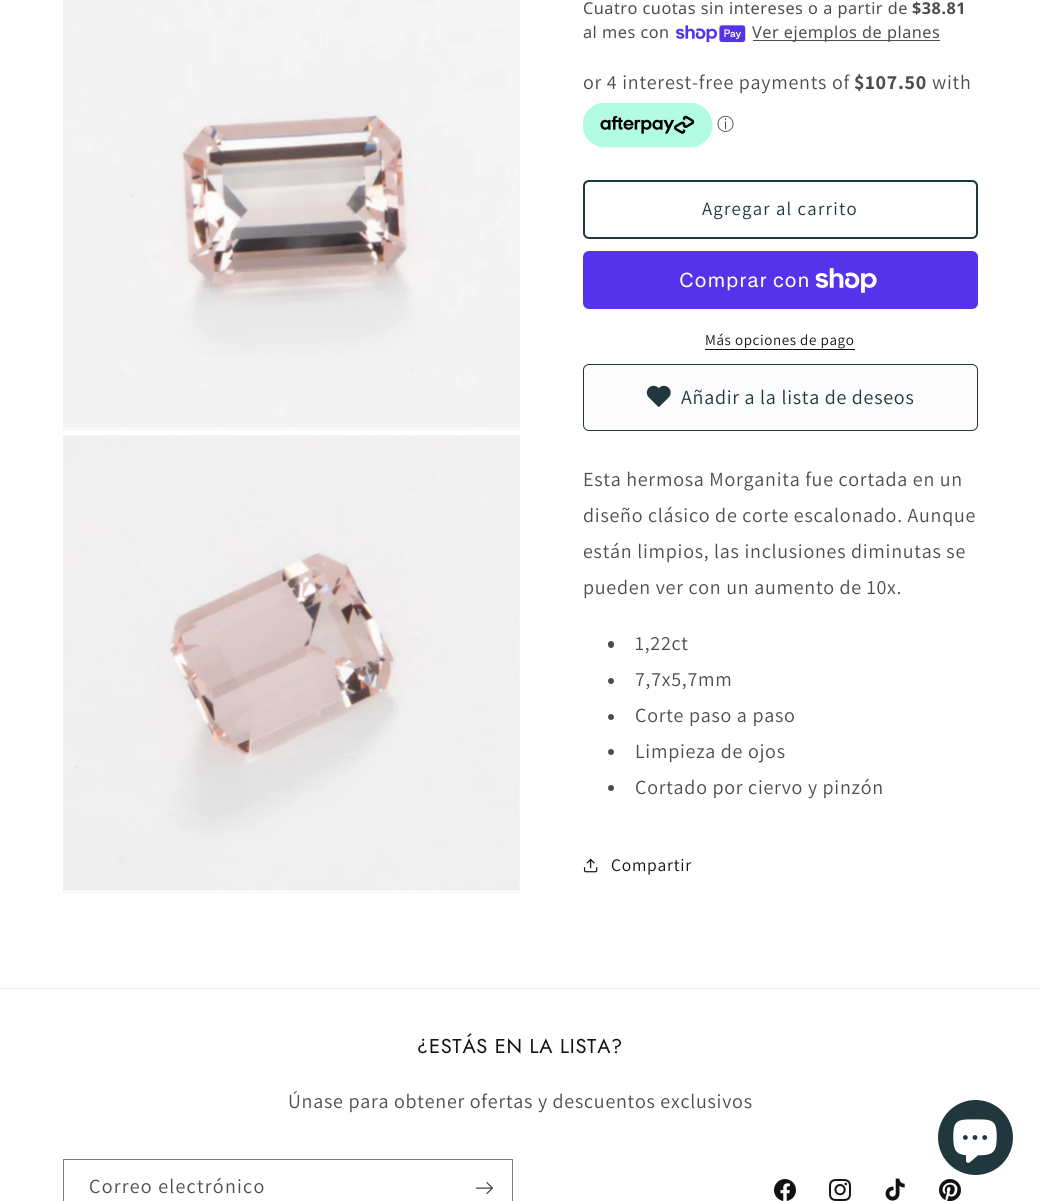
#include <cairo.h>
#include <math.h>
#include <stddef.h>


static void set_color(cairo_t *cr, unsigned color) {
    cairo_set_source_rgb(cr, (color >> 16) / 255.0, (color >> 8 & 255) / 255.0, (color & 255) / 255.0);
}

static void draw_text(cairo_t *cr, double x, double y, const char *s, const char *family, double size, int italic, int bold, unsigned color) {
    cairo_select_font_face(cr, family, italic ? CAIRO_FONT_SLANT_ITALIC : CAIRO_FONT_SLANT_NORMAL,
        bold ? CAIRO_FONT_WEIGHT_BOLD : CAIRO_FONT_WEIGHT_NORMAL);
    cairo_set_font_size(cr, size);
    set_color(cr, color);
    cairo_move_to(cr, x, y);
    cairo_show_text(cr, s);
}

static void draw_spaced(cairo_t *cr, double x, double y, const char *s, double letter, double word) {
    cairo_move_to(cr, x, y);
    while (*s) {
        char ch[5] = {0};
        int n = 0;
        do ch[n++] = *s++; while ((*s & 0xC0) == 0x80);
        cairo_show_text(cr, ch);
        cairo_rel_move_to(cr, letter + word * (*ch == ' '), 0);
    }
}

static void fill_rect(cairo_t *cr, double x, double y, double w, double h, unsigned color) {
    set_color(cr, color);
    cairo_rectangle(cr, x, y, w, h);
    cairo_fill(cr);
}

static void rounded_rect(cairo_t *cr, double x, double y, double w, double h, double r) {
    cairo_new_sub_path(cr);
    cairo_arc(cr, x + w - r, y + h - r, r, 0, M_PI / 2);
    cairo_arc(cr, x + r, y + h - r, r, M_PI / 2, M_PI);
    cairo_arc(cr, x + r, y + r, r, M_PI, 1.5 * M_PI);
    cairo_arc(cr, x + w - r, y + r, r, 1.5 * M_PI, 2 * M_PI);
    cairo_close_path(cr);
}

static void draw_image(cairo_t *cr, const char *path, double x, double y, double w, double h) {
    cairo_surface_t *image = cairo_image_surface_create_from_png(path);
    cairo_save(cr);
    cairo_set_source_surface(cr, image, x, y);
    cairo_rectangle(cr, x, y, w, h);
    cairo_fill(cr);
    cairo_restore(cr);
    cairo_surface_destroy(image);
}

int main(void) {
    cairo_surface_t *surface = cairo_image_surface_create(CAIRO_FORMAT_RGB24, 1040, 1201);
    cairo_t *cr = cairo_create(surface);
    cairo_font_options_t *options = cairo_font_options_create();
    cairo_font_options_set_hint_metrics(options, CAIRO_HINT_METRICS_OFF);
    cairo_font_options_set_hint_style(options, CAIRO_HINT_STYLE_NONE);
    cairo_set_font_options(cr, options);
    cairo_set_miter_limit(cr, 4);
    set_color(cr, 0xFFFFFF);
    cairo_paint(cr);
    cairo_rectangle(cr, 63.5, -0.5, 456, 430);
    set_color(cr, 0xF3F3F3);
    cairo_set_line_width(cr, 1);
    cairo_stroke(cr);
    draw_image(cr, "assets/img1.png", 64, 0, 455, 428);
    cairo_rectangle(cr, 63.5, 435.5, 456, 457);
    cairo_stroke(cr);
    draw_image(cr, "assets/img2.png", 64, 436, 455, 455);
    cairo_select_font_face(cr, "Noto Sans", CAIRO_FONT_SLANT_NORMAL, CAIRO_FONT_WEIGHT_NORMAL);
    cairo_set_font_size(cr, 16.25);
    set_color(cr, 0x4D4D4D);
    draw_spaced(cr, 583, 14, "Cuatro cuotas sin intereses o a partir de", 0.5, 0);
    cairo_select_font_face(cr, "Noto Sans", CAIRO_FONT_SLANT_NORMAL, CAIRO_FONT_WEIGHT_BOLD);
    draw_spaced(cr, 912, 14, "$38.81", 0.5, 0);
    cairo_select_font_face(cr, "Noto Sans", CAIRO_FONT_SLANT_NORMAL, CAIRO_FONT_WEIGHT_NORMAL);
    draw_spaced(cr, 583, 38, "al mes con", 0.5, 0);
    draw_image(cr, "assets/img3.png", 676, 25, 70, 18);
    fill_rect(cr, 753, 40, 187, 1, 0x4D4D4D);
    draw_spaced(cr, 752, 38, "Ver ejemplos de planes", 0.5, 0);
    cairo_select_font_face(cr, "Assistant", CAIRO_FONT_SLANT_NORMAL, CAIRO_FONT_WEIGHT_NORMAL);
    cairo_set_font_size(cr, 20);
    draw_spaced(cr, 583, 89, "or 4 interest-free payments of", 0.75, 0);
    cairo_select_font_face(cr, "Assistant", CAIRO_FONT_SLANT_NORMAL, CAIRO_FONT_WEIGHT_BOLD);
    draw_spaced(cr, 854, 89, "$107.50", 0.75, 0);
    cairo_select_font_face(cr, "Assistant", CAIRO_FONT_SLANT_NORMAL, CAIRO_FONT_WEIGHT_NORMAL);
    draw_spaced(cr, 932, 89, "with", 0.75, 0);
    draw_image(cr, "assets/img4.png", 583, 103, 130, 45);
    draw_text(cr, 717, 130, "ⓘ", "WenQuanYi Zen Hei Medium", 17, 0, 0, 0x4D4D4D);
    rounded_rect(cr, 584, 181, 393, 57, 5);
    set_color(cr, 0x20373E);
    cairo_set_line_width(cr, 2);
    cairo_stroke(cr);
    cairo_select_font_face(cr, "Assistant", CAIRO_FONT_SLANT_NORMAL, CAIRO_FONT_WEIGHT_NORMAL);
    cairo_set_font_size(cr, 18.75);
    draw_spaced(cr, 702, 215, "Agregar al carrito", 1.25, 0);
    set_color(cr, 0x5433EB);
    rounded_rect(cr, 583, 251, 395, 58, 6);
    cairo_fill(cr);
    cairo_select_font_face(cr, "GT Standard", CAIRO_FONT_SLANT_NORMAL, CAIRO_FONT_WEIGHT_NORMAL);
    cairo_set_font_size(cr, 20);
    set_color(cr, 0xFFFFFF);
    draw_spaced(cr, 679, 287, "Comprar con", 0.75, 0);
    draw_image(cr, "assets/img5.png", 815, 268, 62, 25);
    cairo_select_font_face(cr, "Assistant", CAIRO_FONT_SLANT_NORMAL, CAIRO_FONT_WEIGHT_NORMAL);
    cairo_set_font_size(cr, 15);
    set_color(cr, 0x121212);
    draw_spaced(cr, 705, 345, "Más opciones de pago", 0.6, 0);
    fill_rect(cr, 705, 349, 150, 1, 0x121212);
    set_color(cr, 0xFCFCFC);
    rounded_rect(cr, 583.5, 364.5, 394, 66, 5.5);
    cairo_fill_preserve(cr);
    set_color(cr, 0x20373E);
    cairo_set_line_width(cr, 1);
    cairo_stroke(cr);
    draw_image(cr, "assets/img6.png", 646, 385, 25, 22);
    cairo_set_font_size(cr, 20);
    draw_spaced(cr, 681, 404, "Añadir a la lista de deseos", 0.75, 0);
    set_color(cr, 0x4D4D4D);
    draw_spaced(cr, 583, 486, "Esta hermosa Morganita fue cortada en un", 0.75, 0);
    draw_spaced(cr, 583, 522, "diseño clásico de corte escalonado. Aunque", 0.75, 0);
    draw_spaced(cr, 583, 558, "están limpios, las inclusiones diminutas se", 0.75, 0);
    draw_spaced(cr, 583, 594, "pueden ver con un aumento de 10x.", 0.75, 0);
    rounded_rect(cr, 608, 641, 6, 7, 3);
    cairo_fill(cr);
    draw_spaced(cr, 635, 650, "1,22ct", 0.75, 0);
    cairo_new_path(cr);
    cairo_arc(cr, 611, 681, 3, 0, 2 * M_PI);
    cairo_fill(cr);
    draw_spaced(cr, 635, 686, "7,7x5,7mm", 0.75, 0);
    cairo_new_path(cr);
    cairo_arc(cr, 611, 717, 3, 0, 2 * M_PI);
    cairo_fill(cr);
    draw_spaced(cr, 635, 722, "Corte paso a paso", 0.75, 0);
    cairo_new_path(cr);
    cairo_arc(cr, 611, 752, 3, 0, 2 * M_PI);
    cairo_fill(cr);
    draw_spaced(cr, 635, 758, "Limpieza de ojos", 0.75, 0);
    cairo_new_path(cr);
    cairo_arc(cr, 611, 788, 3, 0, 2 * M_PI);
    cairo_fill(cr);
    draw_spaced(cr, 635, 794, "Cortado por ciervo y pinzón", 0.75, 0);
    draw_image(cr, "assets/img7.png", 583, 858, 15, 15);
    cairo_set_font_size(cr, 17.5);
    set_color(cr, 0x121212);
    draw_spaced(cr, 611, 871, "Compartir", 0.75, 0);
    fill_rect(cr, 0, 988, 1040, 1, 0xECECEC);
    cairo_select_font_face(cr, "Jost", CAIRO_FONT_SLANT_NORMAL, CAIRO_FONT_WEIGHT_NORMAL);
    cairo_set_font_size(cr, 20);
    set_color(cr, 0x121212);
    draw_spaced(cr, 417, 1053, "¿ESTÁS EN LA LISTA?", 0.75, 0);
    cairo_select_font_face(cr, "Assistant", CAIRO_FONT_SLANT_NORMAL, CAIRO_FONT_WEIGHT_NORMAL);
    set_color(cr, 0x4D4D4D);
    draw_spaced(cr, 288, 1108, "Únase para obtener ofertas y descuentos exclusivos", 0.75, 0);
    cairo_rectangle(cr, 63.5, 1159.5, 449, 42);
    set_color(cr, 0x7D7D7D);
    cairo_stroke(cr);
    set_color(cr, 0x4D4D4D);
    draw_spaced(cr, 89, 1193, "Correo electrónico", 1.25, 0);
    draw_image(cr, "assets/img8.png", 475, 1182, 18, 13);
    draw_image(cr, "assets/img9.png", 774, 1179, 22, 22);
    draw_image(cr, "assets/img10.png", 829, 1179, 22, 22);
    draw_image(cr, "assets/img11.png", 885, 1178, 20, 23);
    draw_image(cr, "assets/img12.png", 939, 1179, 22, 22);
    set_color(cr, 0x20373E);
    cairo_arc(cr, 975.5, 1137.5, 37.5, 0, 2 * M_PI);
    cairo_fill(cr);
    draw_image(cr, "assets/img13.png", 953, 1119, 44, 44);
    cairo_surface_write_to_png(surface, "output.png");
    cairo_font_options_destroy(options);
    cairo_destroy(cr);
    cairo_surface_destroy(surface);
    return 0;
}
